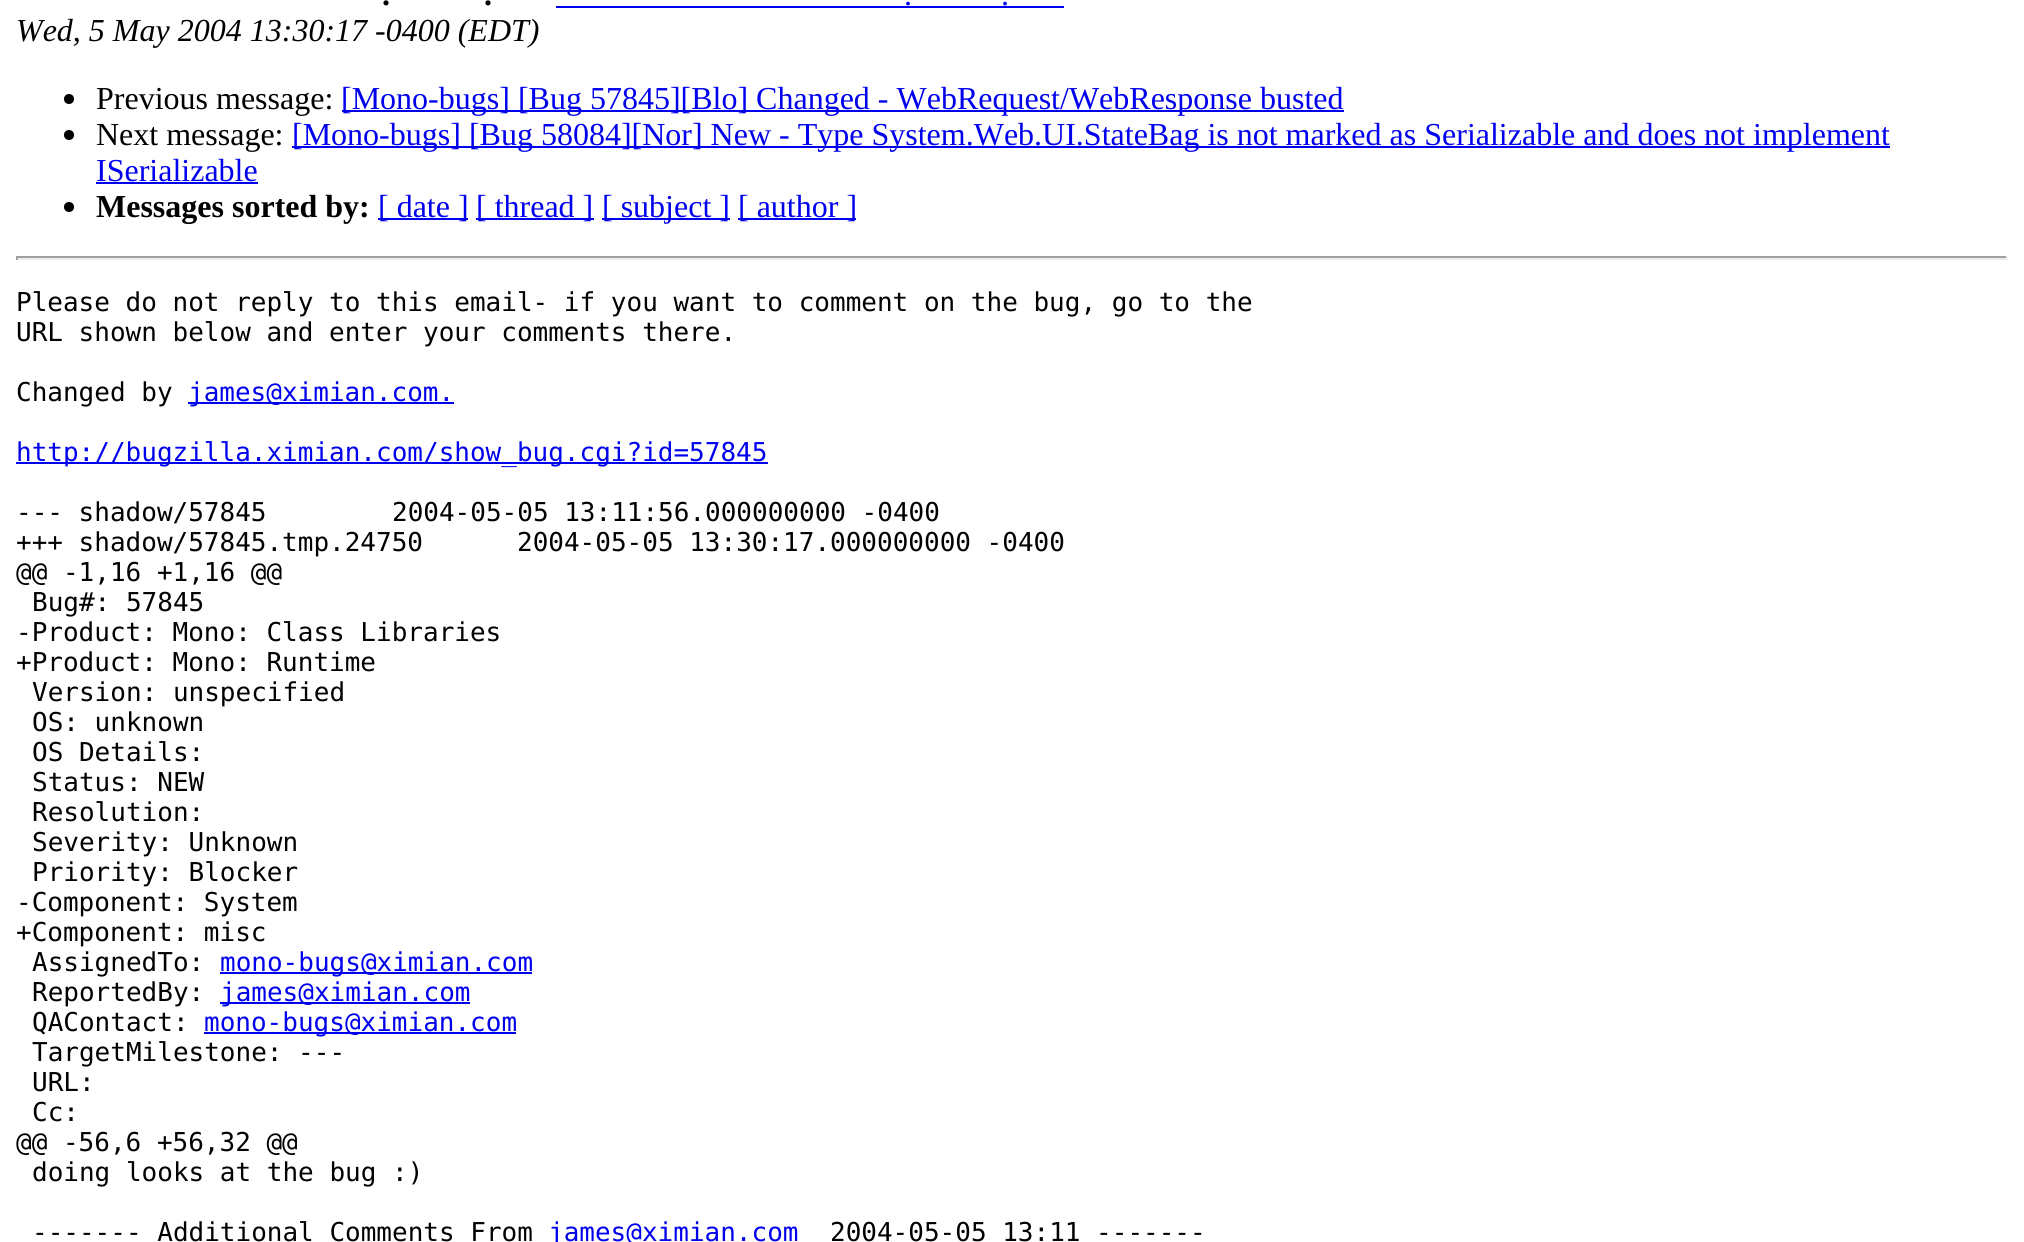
#include <cairo.h>
#include <math.h>
#include <stddef.h>


static void set_color(cairo_t *cr, unsigned color) {
    cairo_set_source_rgb(cr, (color >> 16) / 255.0, (color >> 8 & 255) / 255.0, (color & 255) / 255.0);
}

static void draw_text(cairo_t *cr, double x, double y, const char *s, const char *family, double size, int italic, int bold, unsigned color) {
    cairo_select_font_face(cr, family, italic ? CAIRO_FONT_SLANT_ITALIC : CAIRO_FONT_SLANT_NORMAL,
        bold ? CAIRO_FONT_WEIGHT_BOLD : CAIRO_FONT_WEIGHT_NORMAL);
    cairo_set_font_size(cr, size);
    set_color(cr, color);
    cairo_move_to(cr, x, y);
    cairo_show_text(cr, s);
}

static void fill_rect(cairo_t *cr, double x, double y, double w, double h, unsigned color) {
    set_color(cr, color);
    cairo_rectangle(cr, x, y, w, h);
    cairo_fill(cr);
}

int main(void) {
    cairo_surface_t *surface = cairo_image_surface_create(CAIRO_FORMAT_RGB24, 2024, 1242);
    cairo_t *cr = cairo_create(surface);
    cairo_font_options_t *options = cairo_font_options_create();
    cairo_font_options_set_hint_metrics(options, CAIRO_HINT_METRICS_OFF);
    cairo_font_options_set_hint_style(options, CAIRO_HINT_STYLE_NONE);
    cairo_set_font_options(cr, options);
    cairo_set_miter_limit(cr, 4);
    set_color(cr, 0xFFFFFF);
    cairo_paint(cr);
    draw_text(cr, 382, 5, ".", "Liberation Serif", 32, 0, 1, 0x000000);
    draw_text(cr, 484, 5, ".", "Liberation Serif", 32, 0, 1, 0x000000);
    draw_text(cr, 904, 5, ".", "Liberation Serif", 32, 0, 0, 0x0000EE);
    fill_rect(cr, 556, 6, 508, 2, 0x0000EE);
    draw_text(cr, 1001, 5, ".", "Liberation Serif", 32, 0, 0, 0x0000EE);
    draw_text(cr, 16, 41, "Wed, 5 May 2004 13:30:17 -0400 (EDT)", "Liberation Serif", 32, 1, 0, 0x000000);
    cairo_new_path(cr);
    cairo_arc(cr, 69, 99, 5, 0, 2 * M_PI);
    cairo_fill(cr);
    draw_text(cr, 96, 109, "Previous message:", "Liberation Serif", 32, 0, 0, 0x000000);
    fill_rect(cr, 342, 110, 1002, 2, 0x0000EE);
    draw_text(cr, 341, 109, "[Mono-bugs] [Bug 57845][Blo] Changed - WebRequest/WebResponse busted", "Liberation Serif", 32, 0, 0, 0x0000EE);
    set_color(cr, 0x000000);
    cairo_new_path(cr);
    cairo_arc(cr, 69, 135, 5, 0, 2 * M_PI);
    cairo_fill(cr);
    draw_text(cr, 96, 145, "Next message:", "Liberation Serif", 32, 0, 0, 0x000000);
    fill_rect(cr, 292, 146, 1598, 2, 0x0000EE);
    draw_text(cr, 292, 145, "[Mono-bugs] [Bug 58084][Nor] New - Type System.Web.UI.StateBag is not marked as Serializable and does not implement", "Liberation Serif", 32, 0, 0, 0x0000EE);
    draw_text(cr, 96, 181, "ISerializable", "Liberation Serif", 32, 0, 0, 0x0000EE);
    fill_rect(cr, 96, 182, 162, 2, 0x0000EE);
    set_color(cr, 0x000000);
    cairo_new_path(cr);
    cairo_arc(cr, 69, 207, 5, 0, 2 * M_PI);
    cairo_fill(cr);
    draw_text(cr, 96, 217, "Messages sorted by:", "Liberation Serif", 32, 0, 1, 0x000000);
    fill_rect(cr, 378, 218, 90, 2, 0x0000EE);
    draw_text(cr, 378, 217, "[ date ]", "Liberation Serif", 32, 0, 0, 0x0000EE);
    fill_rect(cr, 476, 218, 118, 2, 0x0000EE);
    draw_text(cr, 476, 217, "[ thread ]", "Liberation Serif", 32, 0, 0, 0x0000EE);
    fill_rect(cr, 602, 218, 128, 2, 0x0000EE);
    draw_text(cr, 602, 217, "[ subject ]", "Liberation Serif", 32, 0, 0, 0x0000EE);
    fill_rect(cr, 738, 218, 118, 2, 0x0000EE);
    draw_text(cr, 738, 217, "[ author ]", "Liberation Serif", 32, 0, 0, 0x0000EE);
    fill_rect(cr, 16, 256, 1992, 2, 0x9F9F9F);
    fill_rect(cr, 2006, 256, 2, 4, 0xEEEEEE);
    fill_rect(cr, 16, 258, 1992, 2, 0xEEEEEE);
    fill_rect(cr, 16, 256, 2, 4, 0x9F9F9F);
    draw_text(cr, 16, 311, "Please do not reply to this email- if you want to comment on the bug, go to the", "DejaVu Sans Mono", 26, 0, 0, 0x000000);
    draw_text(cr, 16, 341, "URL shown below and enter your comments there.", "DejaVu Sans Mono", 26, 0, 0, 0x000000);
    draw_text(cr, 16, 401, "Changed by", "DejaVu Sans Mono", 26, 0, 0, 0x000000);
    fill_rect(cr, 188, 402, 266, 2, 0x0000EE);
    draw_text(cr, 188, 401, "james@ximian.com.", "DejaVu Sans Mono", 26, 0, 0, 0x0000EE);
    fill_rect(cr, 16, 462, 752, 2, 0x0000EE);
    draw_text(cr, 16, 461, "http://bugzilla.ximian.com/show_bug.cgi?id=57845", "DejaVu Sans Mono", 26, 0, 0, 0x0000EE);
    draw_text(cr, 16, 521, "--- shadow/57845", "DejaVu Sans Mono", 26, 0, 0, 0x000000);
    draw_text(cr, 392, 521, "2004-05-05 13:11:56.000000000 -0400", "DejaVu Sans Mono", 26, 0, 0, 0x000000);
    draw_text(cr, 16, 551, "+++ shadow/57845.tmp.24750", "DejaVu Sans Mono", 26, 0, 0, 0x000000);
    draw_text(cr, 517, 551, "2004-05-05 13:30:17.000000000 -0400", "DejaVu Sans Mono", 26, 0, 0, 0x000000);
    draw_text(cr, 16, 581, "@@ -1,16 +1,16 @@", "DejaVu Sans Mono", 26, 0, 0, 0x000000);
    draw_text(cr, 32, 611, "Bug#: 57845", "DejaVu Sans Mono", 26, 0, 0, 0x000000);
    draw_text(cr, 16, 641, "-Product: Mono: Class Libraries", "DejaVu Sans Mono", 26, 0, 0, 0x000000);
    draw_text(cr, 16, 671, "+Product: Mono: Runtime", "DejaVu Sans Mono", 26, 0, 0, 0x000000);
    draw_text(cr, 32, 701, "Version: unspecified", "DejaVu Sans Mono", 26, 0, 0, 0x000000);
    draw_text(cr, 32, 731, "OS: unknown", "DejaVu Sans Mono", 26, 0, 0, 0x000000);
    draw_text(cr, 32, 761, "OS Details:", "DejaVu Sans Mono", 26, 0, 0, 0x000000);
    draw_text(cr, 32, 791, "Status: NEW", "DejaVu Sans Mono", 26, 0, 0, 0x000000);
    draw_text(cr, 32, 821, "Resolution:", "DejaVu Sans Mono", 26, 0, 0, 0x000000);
    draw_text(cr, 32, 851, "Severity: Unknown", "DejaVu Sans Mono", 26, 0, 0, 0x000000);
    draw_text(cr, 32, 881, "Priority: Blocker", "DejaVu Sans Mono", 26, 0, 0, 0x000000);
    draw_text(cr, 16, 911, "-Component: System", "DejaVu Sans Mono", 26, 0, 0, 0x000000);
    draw_text(cr, 16, 941, "+Component: misc", "DejaVu Sans Mono", 26, 0, 0, 0x000000);
    draw_text(cr, 32, 971, "AssignedTo:", "DejaVu Sans Mono", 26, 0, 0, 0x000000);
    fill_rect(cr, 220, 972, 312, 2, 0x0000EE);
    draw_text(cr, 220, 971, "mono-bugs@ximian.com", "DejaVu Sans Mono", 26, 0, 0, 0x0000EE);
    draw_text(cr, 32, 1001, "ReportedBy:", "DejaVu Sans Mono", 26, 0, 0, 0x000000);
    fill_rect(cr, 220, 1002, 250, 2, 0x0000EE);
    draw_text(cr, 220, 1001, "james@ximian.com", "DejaVu Sans Mono", 26, 0, 0, 0x0000EE);
    draw_text(cr, 32, 1031, "QAContact:", "DejaVu Sans Mono", 26, 0, 0, 0x000000);
    fill_rect(cr, 204, 1032, 312, 2, 0x0000EE);
    draw_text(cr, 204, 1031, "mono-bugs@ximian.com", "DejaVu Sans Mono", 26, 0, 0, 0x0000EE);
    draw_text(cr, 32, 1061, "TargetMilestone: ---", "DejaVu Sans Mono", 26, 0, 0, 0x000000);
    draw_text(cr, 32, 1091, "URL:", "DejaVu Sans Mono", 26, 0, 0, 0x000000);
    draw_text(cr, 32, 1121, "Cc:", "DejaVu Sans Mono", 26, 0, 0, 0x000000);
    draw_text(cr, 16, 1151, "@@ -56,6 +56,32 @@", "DejaVu Sans Mono", 26, 0, 0, 0x000000);
    draw_text(cr, 32, 1181, "doing looks at the bug :)", "DejaVu Sans Mono", 26, 0, 0, 0x000000);
    draw_text(cr, 32, 1241, "------- Additional Comments From", "DejaVu Sans Mono", 26, 0, 0, 0x000000);
    draw_text(cr, 548, 1241, "james@ximian.com", "DejaVu Sans Mono", 26, 0, 0, 0x0000EE);
    draw_text(cr, 830, 1241, "2004-05-05 13:11 -------", "DejaVu Sans Mono", 26, 0, 0, 0x000000);
    cairo_surface_write_to_png(surface, "output.png");
    cairo_font_options_destroy(options);
    cairo_destroy(cr);
    cairo_surface_destroy(surface);
    return 0;
}
